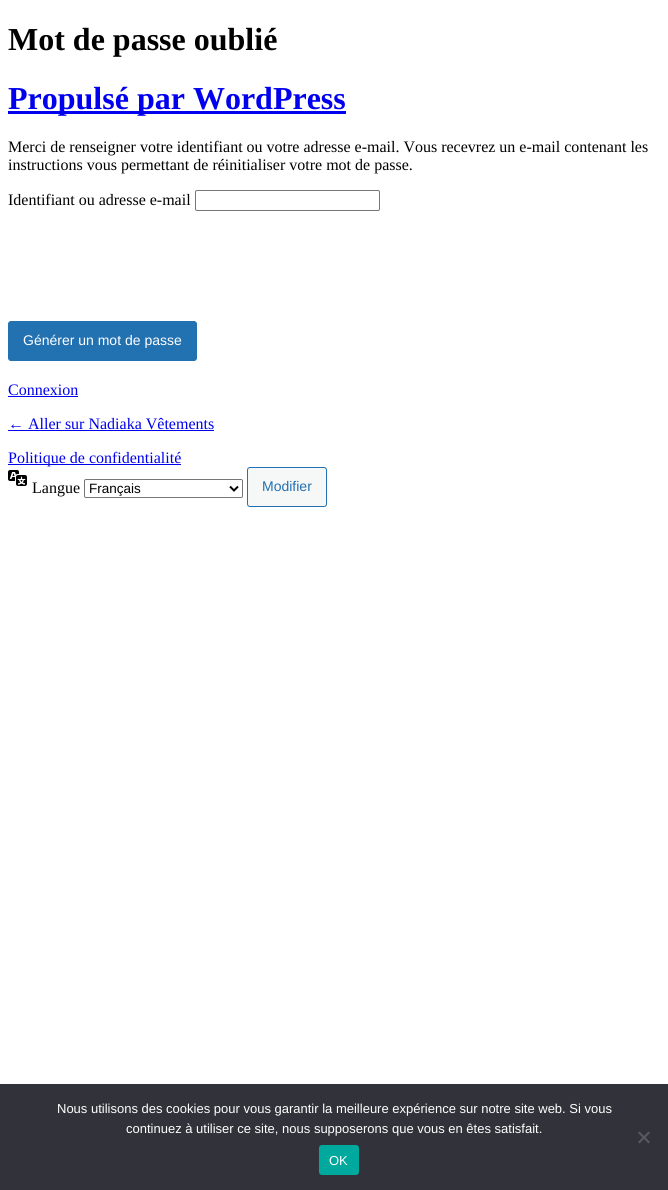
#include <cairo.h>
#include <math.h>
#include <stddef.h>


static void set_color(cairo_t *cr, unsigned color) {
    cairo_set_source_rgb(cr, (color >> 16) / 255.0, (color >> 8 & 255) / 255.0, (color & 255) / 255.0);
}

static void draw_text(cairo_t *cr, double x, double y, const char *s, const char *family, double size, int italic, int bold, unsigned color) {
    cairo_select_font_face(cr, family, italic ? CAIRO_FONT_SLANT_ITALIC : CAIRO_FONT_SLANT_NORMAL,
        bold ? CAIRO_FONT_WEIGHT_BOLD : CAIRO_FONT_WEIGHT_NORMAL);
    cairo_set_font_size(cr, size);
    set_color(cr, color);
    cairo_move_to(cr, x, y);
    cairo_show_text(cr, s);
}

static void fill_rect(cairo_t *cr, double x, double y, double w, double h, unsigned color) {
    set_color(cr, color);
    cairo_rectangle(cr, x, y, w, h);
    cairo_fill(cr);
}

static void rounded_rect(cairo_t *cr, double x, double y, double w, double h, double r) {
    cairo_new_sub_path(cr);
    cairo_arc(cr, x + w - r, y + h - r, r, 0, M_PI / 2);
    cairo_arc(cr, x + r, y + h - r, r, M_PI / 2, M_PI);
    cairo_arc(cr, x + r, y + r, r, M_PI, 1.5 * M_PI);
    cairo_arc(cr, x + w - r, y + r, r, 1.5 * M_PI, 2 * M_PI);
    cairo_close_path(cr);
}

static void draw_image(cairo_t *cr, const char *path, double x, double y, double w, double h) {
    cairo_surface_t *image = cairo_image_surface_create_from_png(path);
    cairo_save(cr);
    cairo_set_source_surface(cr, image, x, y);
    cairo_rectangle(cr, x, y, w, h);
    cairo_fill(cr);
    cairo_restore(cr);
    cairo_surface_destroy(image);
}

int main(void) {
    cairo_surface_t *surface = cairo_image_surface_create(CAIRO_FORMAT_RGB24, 668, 1190);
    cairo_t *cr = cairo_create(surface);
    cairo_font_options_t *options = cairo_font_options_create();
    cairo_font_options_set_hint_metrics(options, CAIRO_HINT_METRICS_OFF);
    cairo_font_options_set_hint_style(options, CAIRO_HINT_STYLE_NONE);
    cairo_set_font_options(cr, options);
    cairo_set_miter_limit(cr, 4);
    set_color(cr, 0xFFFFFF);
    cairo_paint(cr);
    draw_text(cr, 8, 50, "Mot de passe oublié", "Liberation Serif", 32, 0, 1, 0x000000);
    fill_rect(cr, 8, 111, 338, 3, 0x0000EE);
    draw_text(cr, 8, 109, "Propulsé par WordPress", "Liberation Serif", 32, 0, 1, 0x0000EE);
    draw_text(cr, 8, 152, "Merci de renseigner votre identifiant ou votre adresse e-mail. Vous recevrez un e-mail contenant les", "Liberation Serif", 16, 0, 0, 0x000000);
    draw_text(cr, 8, 170, "instructions vous permettant de réinitialiser votre mot de passe.", "Liberation Serif", 16, 0, 0, 0x000000);
    draw_text(cr, 8, 205, "Identifiant ou adresse e-mail", "Liberation Serif", 16, 0, 0, 0x000000);
    rounded_rect(cr, 195.5, 190.5, 184, 20, 1.5);
    set_color(cr, 0x767676);
    cairo_set_line_width(cr, 1);
    cairo_stroke(cr);
    set_color(cr, 0x2271B1);
    rounded_rect(cr, 8.5, 321.5, 188, 39, 2.5);
    cairo_fill_preserve(cr);
    cairo_stroke(cr);
    draw_text(cr, 23, 345, "Générer un mot de passe", "Liberation Sans", 14, 0, 0, 0xFFFFFF);
    draw_text(cr, 8, 395, "Connexion", "Liberation Serif", 16, 0, 0, 0x0000EE);
    fill_rect(cr, 8, 396, 70, 1, 0x0000EE);
    draw_text(cr, 8, 429, "← Aller sur Nadiaka Vêtements", "Liberation Serif", 16, 0, 0, 0x0000EE);
    fill_rect(cr, 8, 430, 206, 1, 0x0000EE);
    fill_rect(cr, 8, 464, 173, 1, 0x0000EE);
    draw_text(cr, 8, 463, "Politique de confidentialité", "Liberation Serif", 16, 0, 0, 0x0000EE);
    draw_image(cr, "assets/img1.png", 8, 470, 19, 16);
    draw_text(cr, 32, 493, "Langue", "Liberation Serif", 16, 0, 0, 0x000000);
    rounded_rect(cr, 84.5, 479.5, 158, 18, 1.5);
    set_color(cr, 0x767676);
    cairo_stroke(cr);
    cairo_new_path(cr);
    cairo_move_to(cr, 230, 486.5);
    cairo_line_to(cr, 234, 490.5);
    cairo_line_to(cr, 238, 486.5);
    set_color(cr, 0x000000);
    cairo_set_line_width(cr, 2);
    cairo_stroke(cr);
    draw_text(cr, 89, 493, "Français", "Liberation Sans", 13.5, 0, 0, 0x000000);
    set_color(cr, 0xF6F7F7);
    rounded_rect(cr, 247.5, 467.5, 79, 39, 2.5);
    cairo_fill_preserve(cr);
    set_color(cr, 0x2271B1);
    cairo_set_line_width(cr, 1);
    cairo_stroke(cr);
    draw_text(cr, 262, 491, "Modifier", "Liberation Sans", 14, 0, 0, 0x2271B1);
    fill_rect(cr, 0, 1084, 668, 106, 0x32323A);
    draw_text(cr, 57, 1113, "Nous utilisons des cookies pour vous garantir la meilleure expérience sur notre site web. Si vous", "Liberation Sans", 13, 0, 0, 0xFFFFFF);
    draw_text(cr, 126, 1133, "continuez à utiliser ce site, nous supposerons que vous en êtes satisfait.", "Liberation Sans", 13, 0, 0, 0xFFFFFF);
    set_color(cr, 0x59595D);
    cairo_new_path(cr);
    cairo_move_to(cr, 648.5, 1131.5);
    cairo_line_to(cr, 650, 1133);
    cairo_line_to(cr, 639.5, 1143.5);
    cairo_line_to(cr, 638, 1142);
    cairo_close_path(cr);
    cairo_fill(cr);
    cairo_new_path(cr);
    cairo_move_to(cr, 638, 1133);
    cairo_line_to(cr, 639.5, 1131.5);
    cairo_line_to(cr, 650, 1142);
    cairo_line_to(cr, 648.5, 1143.5);
    cairo_close_path(cr);
    cairo_fill(cr);
    set_color(cr, 0x00A99D);
    rounded_rect(cr, 319, 1145, 40, 30, 3);
    cairo_fill(cr);
    draw_text(cr, 329, 1165, "OK", "Liberation Sans", 13, 0, 0, 0xFFFFFF);
    cairo_surface_write_to_png(surface, "output.png");
    cairo_font_options_destroy(options);
    cairo_destroy(cr);
    cairo_surface_destroy(surface);
    return 0;
}
